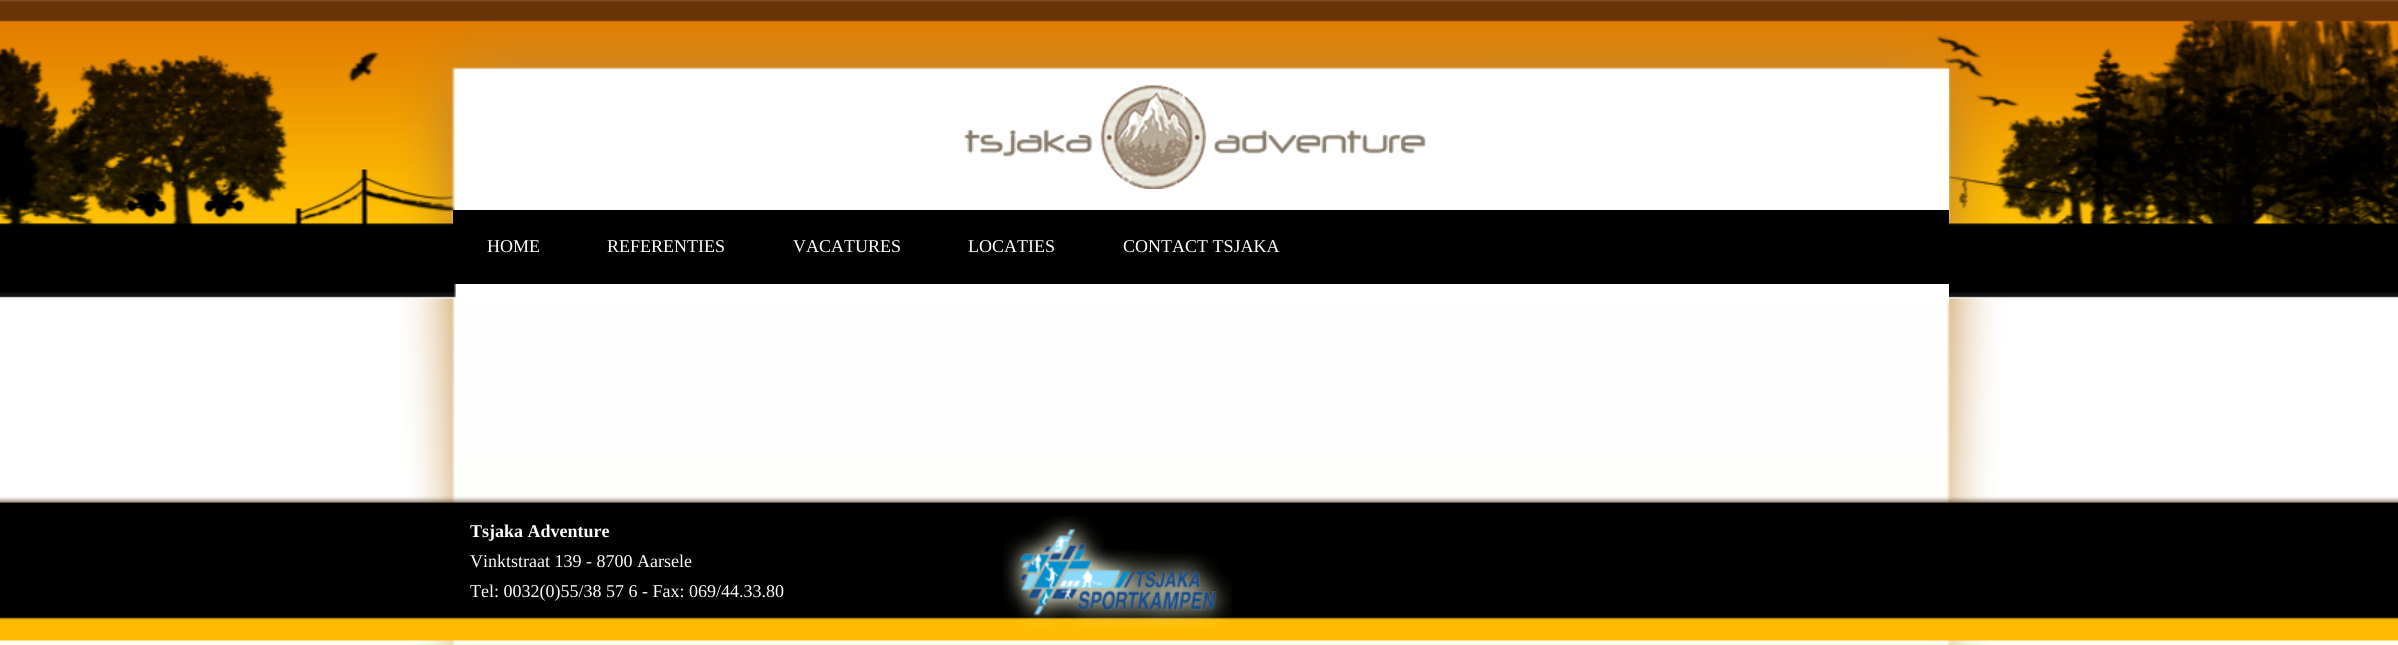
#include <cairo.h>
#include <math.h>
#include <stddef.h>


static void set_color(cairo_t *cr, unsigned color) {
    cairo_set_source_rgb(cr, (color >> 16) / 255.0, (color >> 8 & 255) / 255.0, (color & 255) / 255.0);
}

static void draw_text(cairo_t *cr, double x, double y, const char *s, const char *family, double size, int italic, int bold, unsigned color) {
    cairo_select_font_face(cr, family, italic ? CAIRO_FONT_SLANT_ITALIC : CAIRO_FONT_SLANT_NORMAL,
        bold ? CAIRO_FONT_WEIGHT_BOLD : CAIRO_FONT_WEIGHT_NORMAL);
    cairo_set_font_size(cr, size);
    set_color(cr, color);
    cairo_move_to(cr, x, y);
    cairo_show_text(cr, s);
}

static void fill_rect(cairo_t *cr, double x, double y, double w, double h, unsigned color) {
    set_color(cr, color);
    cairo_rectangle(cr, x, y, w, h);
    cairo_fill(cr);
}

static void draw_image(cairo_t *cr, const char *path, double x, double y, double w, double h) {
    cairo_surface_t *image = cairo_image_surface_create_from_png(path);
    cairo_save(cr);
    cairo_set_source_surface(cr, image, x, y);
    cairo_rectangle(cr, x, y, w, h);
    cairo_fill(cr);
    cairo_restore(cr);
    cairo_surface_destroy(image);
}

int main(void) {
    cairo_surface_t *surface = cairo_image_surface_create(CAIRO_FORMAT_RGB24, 2398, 645);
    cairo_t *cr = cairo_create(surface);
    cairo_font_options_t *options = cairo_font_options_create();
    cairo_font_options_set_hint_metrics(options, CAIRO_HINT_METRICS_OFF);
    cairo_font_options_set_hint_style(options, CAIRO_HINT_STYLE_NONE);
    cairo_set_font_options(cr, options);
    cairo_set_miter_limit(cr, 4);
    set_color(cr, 0xFFFFFF);
    cairo_paint(cr);
    draw_image(cr, "assets/img1.png", 0, 0, 2398, 645);
    draw_image(cr, "assets/img2.png", 450, 0, 1499, 303);
    fill_rect(cr, 456, 69, 1493, 234, 0xFFFFFF);
    draw_image(cr, "assets/img3.png", 964, 85, 462, 104);
    fill_rect(cr, 453, 210, 1496, 74, 0x000000);
    draw_text(cr, 487, 252, "HOME", "Liberation Serif", 18, 0, 0, 0xFFFFFF);
    draw_text(cr, 607, 252, "REFERENTIES", "Liberation Serif", 18, 0, 0, 0xFFFFFF);
    draw_text(cr, 793, 252, "VACATURES", "Liberation Serif", 18, 0, 0, 0xFFFFFF);
    draw_text(cr, 968, 252, "LOCATIES", "Liberation Serif", 18, 0, 0, 0xFFFFFF);
    draw_text(cr, 1123, 252, "CONTACT TSJAKA", "Liberation Serif", 18, 0, 0, 0xFFFFFF);
    draw_image(cr, "assets/img4.png", 0, 496, 2398, 145);
    draw_text(cr, 470, 537, "Tsjaka Adventure", "Liberation Serif", 18, 0, 1, 0xFFFFFF);
    draw_text(cr, 470, 567, "Vinktstraat 139 - 8700 Aarsele", "Liberation Serif", 18, 0, 0, 0xFFFFFF);
    draw_text(cr, 470, 597, "Tel: 0032(0)55/38 57 6 - Fax: 069/44.33.80", "Liberation Serif", 18, 0, 0, 0xFFFFFF);
    draw_image(cr, "assets/img5.png", 1003, 516, 229, 113);
    cairo_surface_write_to_png(surface, "output.png");
    cairo_font_options_destroy(options);
    cairo_destroy(cr);
    cairo_surface_destroy(surface);
    return 0;
}
